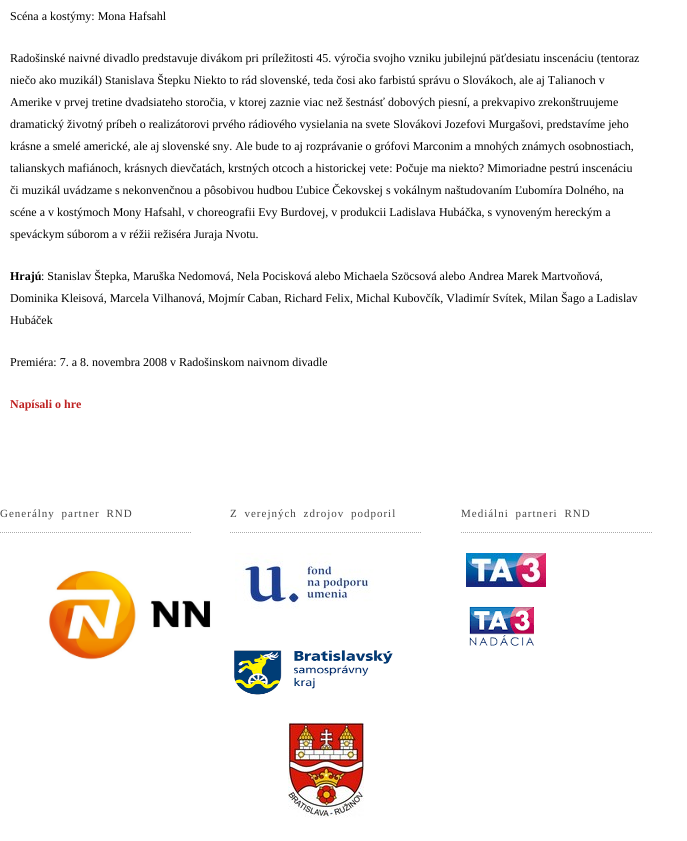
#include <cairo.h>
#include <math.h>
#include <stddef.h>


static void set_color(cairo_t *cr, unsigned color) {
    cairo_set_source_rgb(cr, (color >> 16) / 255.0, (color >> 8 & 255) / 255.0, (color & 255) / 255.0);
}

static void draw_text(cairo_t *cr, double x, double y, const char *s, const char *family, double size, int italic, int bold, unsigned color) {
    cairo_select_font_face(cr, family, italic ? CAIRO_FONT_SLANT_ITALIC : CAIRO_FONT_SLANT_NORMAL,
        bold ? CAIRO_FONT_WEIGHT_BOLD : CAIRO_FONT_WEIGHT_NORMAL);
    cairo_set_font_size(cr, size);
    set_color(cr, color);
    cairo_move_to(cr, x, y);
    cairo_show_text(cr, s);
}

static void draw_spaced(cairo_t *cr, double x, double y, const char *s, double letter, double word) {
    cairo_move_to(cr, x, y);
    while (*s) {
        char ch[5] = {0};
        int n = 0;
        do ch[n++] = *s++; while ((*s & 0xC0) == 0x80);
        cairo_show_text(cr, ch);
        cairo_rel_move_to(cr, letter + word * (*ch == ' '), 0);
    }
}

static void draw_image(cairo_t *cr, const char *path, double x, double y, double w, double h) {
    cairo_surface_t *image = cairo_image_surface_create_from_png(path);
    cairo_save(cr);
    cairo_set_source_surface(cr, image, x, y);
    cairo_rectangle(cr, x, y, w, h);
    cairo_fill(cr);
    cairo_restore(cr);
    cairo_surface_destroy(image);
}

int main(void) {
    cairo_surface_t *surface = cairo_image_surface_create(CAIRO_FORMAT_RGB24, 687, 841);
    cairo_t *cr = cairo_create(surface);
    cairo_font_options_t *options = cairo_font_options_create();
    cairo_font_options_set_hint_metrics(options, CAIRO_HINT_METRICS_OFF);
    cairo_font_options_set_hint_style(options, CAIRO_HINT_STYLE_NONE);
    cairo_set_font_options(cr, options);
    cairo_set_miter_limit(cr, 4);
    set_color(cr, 0xFFFFFF);
    cairo_paint(cr);
    draw_text(cr, 10, 20, "Scéna a kostýmy: Mona Hafsahl", "Liberation Serif", 12, 0, 0, 0x000000);
    draw_text(cr, 10, 62, "Radošinské naivné divadlo predstavuje divákom pri príležitosti 45. výročia svojho vzniku jubilejnú päťdesiatu inscenáciu (tentoraz", "Liberation Serif", 12, 0, 0, 0x000000);
    draw_text(cr, 10, 84, "niečo ako muzikál) Stanislava Štepku Niekto to rád slovenské, teda čosi ako farbistú správu o Slovákoch, ale aj Talianoch v", "Liberation Serif", 12, 0, 0, 0x000000);
    draw_text(cr, 10, 106, "Amerike v prvej tretine dvadsiateho storočia, v ktorej zaznie viac než šestnásť dobových piesní, a prekvapivo zrekonštruujeme", "Liberation Serif", 12, 0, 0, 0x000000);
    draw_text(cr, 10, 128, "dramatický životný príbeh o realizátorovi prvého rádiového vysielania na svete Slovákovi Jozefovi Murgašovi, predstavíme jeho", "Liberation Serif", 12, 0, 0, 0x000000);
    draw_text(cr, 10, 150, "krásne a smelé americké, ale aj slovenské sny. Ale bude to aj rozprávanie o grófovi Marconim a mnohých známych osobnostiach,", "Liberation Serif", 12, 0, 0, 0x000000);
    draw_text(cr, 10, 172, "talianskych mafiánoch, krásnych dievčatách, krstných otcoch a historickej vete: Počuje ma niekto? Mimoriadne pestrú inscenáciu", "Liberation Serif", 12, 0, 0, 0x000000);
    draw_text(cr, 10, 194, "či muzikál uvádzame s nekonvenčnou a pôsobivou hudbou Ľubice Čekovskej s vokálnym naštudovaním Ľubomíra Dolného, na", "Liberation Serif", 12, 0, 0, 0x000000);
    draw_text(cr, 10, 216, "scéne a v kostýmoch Mony Hafsahl, v choreografii Evy Burdovej, v produkcii Ladislava Hubáčka, s vynoveným hereckým a", "Liberation Serif", 12, 0, 0, 0x000000);
    draw_text(cr, 10, 238, "speváckym súborom a v réžii režiséra Juraja Nvotu.", "Liberation Serif", 12, 0, 0, 0x000000);
    draw_text(cr, 10, 280, "Hrajú", "Liberation Serif", 12, 0, 1, 0x000000);
    draw_text(cr, 41, 280, ": Stanislav Štepka, Maruška Nedomová, Nela Pocisková alebo Michaela Szöcsová alebo Andrea Marek Martvoňová,", "Liberation Serif", 12, 0, 0, 0x000000);
    draw_text(cr, 10, 302, "Dominika Kleisová, Marcela Vilhanová, Mojmír Caban, Richard Felix, Michal Kubovčík, Vladimír Svítek, Milan Šago a Ladislav", "Liberation Serif", 12, 0, 0, 0x000000);
    draw_text(cr, 10, 324, "Hubáček", "Liberation Serif", 12, 0, 0, 0x000000);
    draw_text(cr, 10, 366, "Premiéra: 7. a 8. novembra 2008 v Radošinskom naivnom divadle", "Liberation Serif", 12, 0, 0, 0x000000);
    draw_text(cr, 10, 408, "Napísali o hre", "Liberation Serif", 12, 0, 1, 0xBE2121);
    cairo_new_path(cr);
    cairo_move_to(cr, 0, 532.5);
    cairo_line_to(cr, 192, 532.5);
    set_color(cr, 0xAAAAAA);
    cairo_set_line_width(cr, 1);
    cairo_set_dash(cr, (double[]){1, 1}, 2, 0);
    cairo_stroke(cr);
    cairo_select_font_face(cr, "Liberation Serif", CAIRO_FONT_SLANT_NORMAL, CAIRO_FONT_WEIGHT_NORMAL);
    cairo_set_font_size(cr, 11);
    set_color(cr, 0x444444);
    draw_spaced(cr, 0, 517, "Generálny partner RND", 1, 3);
    draw_image(cr, "assets/img1.png", 48, 570, 163, 90);
    cairo_new_path(cr);
    cairo_move_to(cr, 230, 532.5);
    cairo_line_to(cr, 422, 532.5);
    set_color(cr, 0xAAAAAA);
    cairo_stroke(cr);
    set_color(cr, 0x444444);
    draw_spaced(cr, 230, 517, "Z verejných zdrojov podporil", 1, 3);
    draw_image(cr, "assets/img2.png", 235, 553, 139, 56);
    draw_image(cr, "assets/img3.png", 234, 650, 159, 45);
    draw_image(cr, "assets/img4.png", 288, 722, 76, 96);
    cairo_new_path(cr);
    cairo_move_to(cr, 461, 532.5);
    cairo_line_to(cr, 653, 532.5);
    set_color(cr, 0xAAAAAA);
    cairo_stroke(cr);
    set_color(cr, 0x444444);
    draw_spaced(cr, 461, 517, "Mediálni partneri RND", 1, 3);
    draw_image(cr, "assets/img5.png", 466, 553, 80, 34);
    draw_image(cr, "assets/img6.png", 469, 606, 65, 40);
    cairo_surface_write_to_png(surface, "output.png");
    cairo_font_options_destroy(options);
    cairo_destroy(cr);
    cairo_surface_destroy(surface);
    return 0;
}
